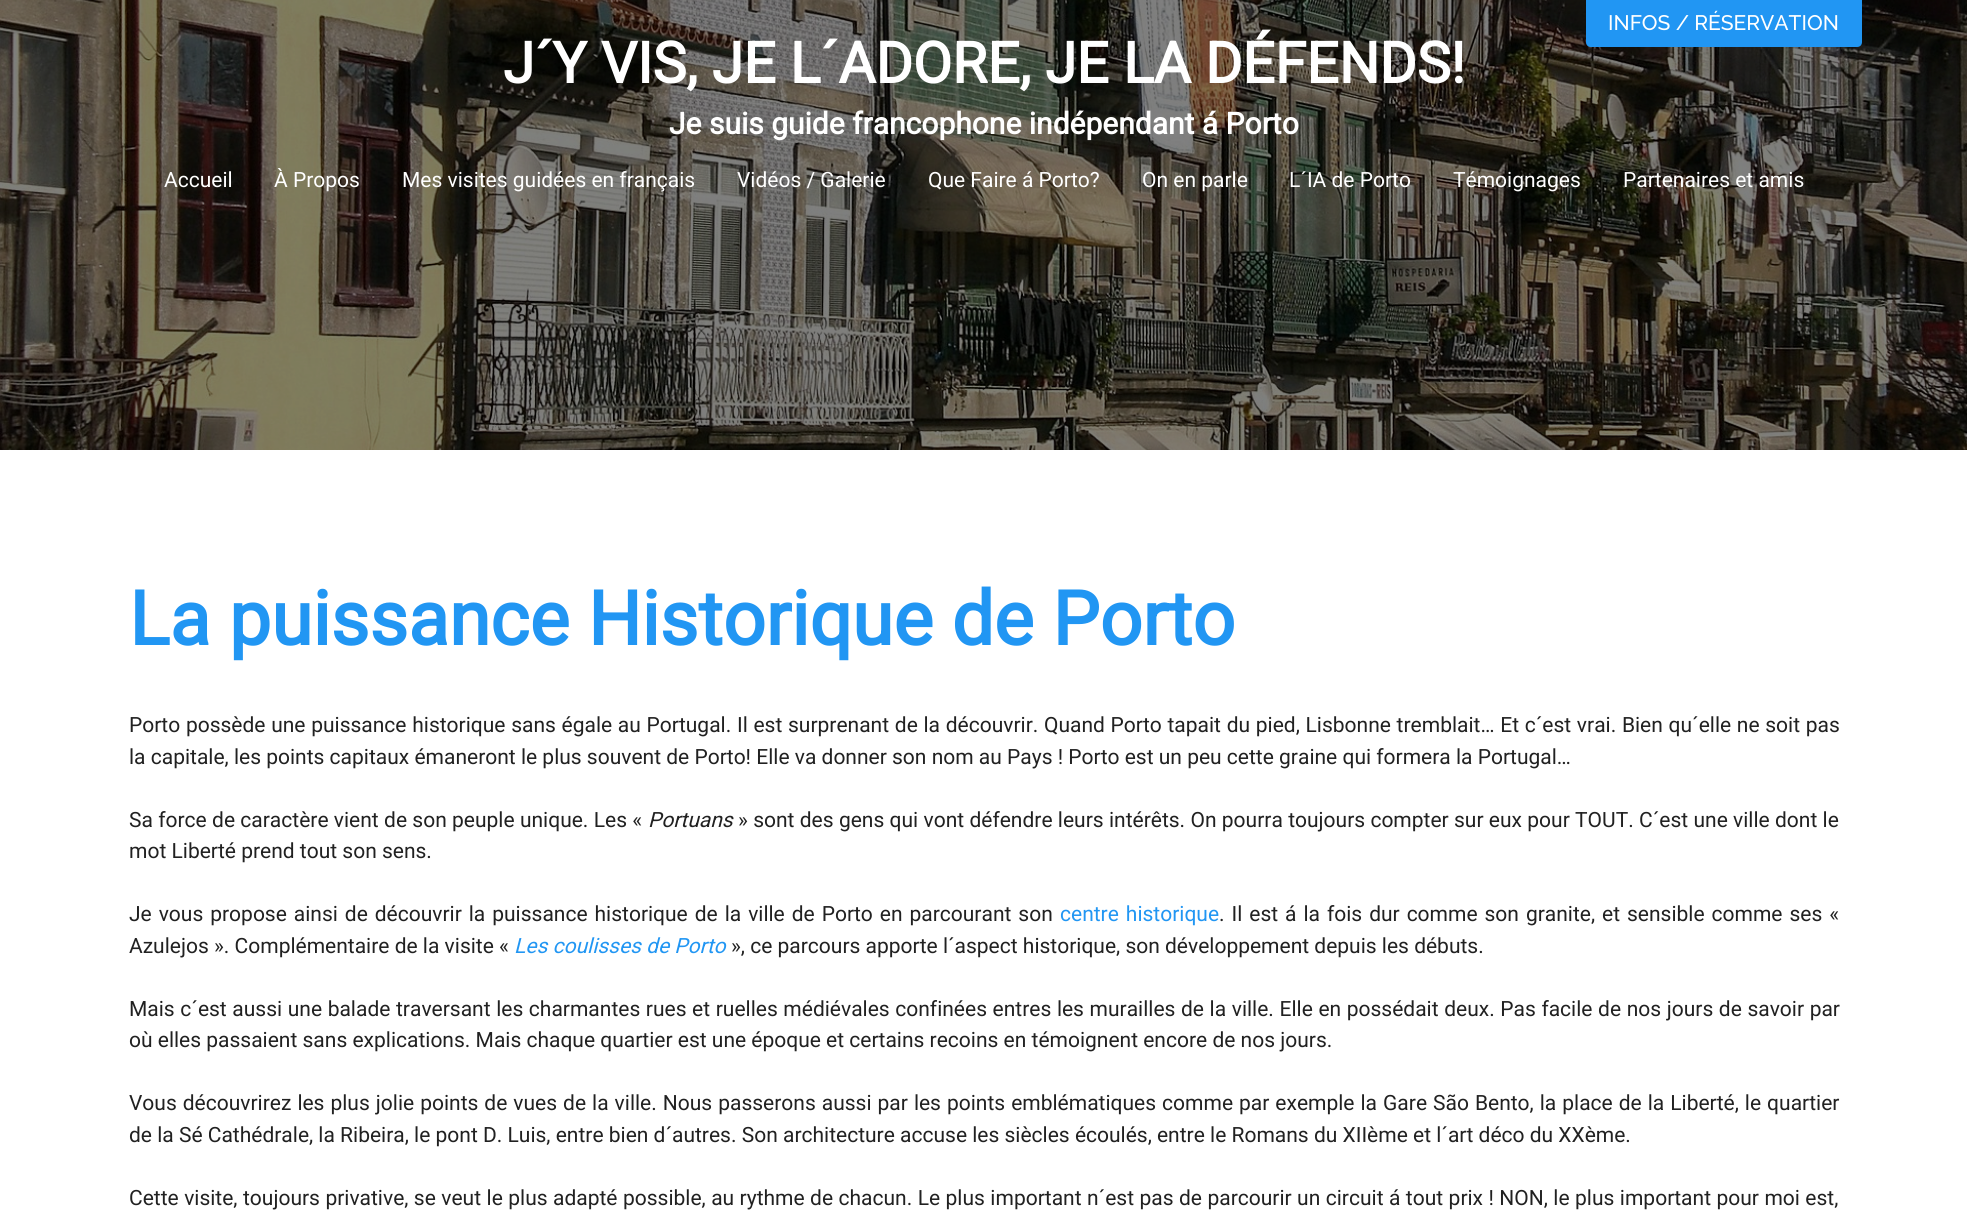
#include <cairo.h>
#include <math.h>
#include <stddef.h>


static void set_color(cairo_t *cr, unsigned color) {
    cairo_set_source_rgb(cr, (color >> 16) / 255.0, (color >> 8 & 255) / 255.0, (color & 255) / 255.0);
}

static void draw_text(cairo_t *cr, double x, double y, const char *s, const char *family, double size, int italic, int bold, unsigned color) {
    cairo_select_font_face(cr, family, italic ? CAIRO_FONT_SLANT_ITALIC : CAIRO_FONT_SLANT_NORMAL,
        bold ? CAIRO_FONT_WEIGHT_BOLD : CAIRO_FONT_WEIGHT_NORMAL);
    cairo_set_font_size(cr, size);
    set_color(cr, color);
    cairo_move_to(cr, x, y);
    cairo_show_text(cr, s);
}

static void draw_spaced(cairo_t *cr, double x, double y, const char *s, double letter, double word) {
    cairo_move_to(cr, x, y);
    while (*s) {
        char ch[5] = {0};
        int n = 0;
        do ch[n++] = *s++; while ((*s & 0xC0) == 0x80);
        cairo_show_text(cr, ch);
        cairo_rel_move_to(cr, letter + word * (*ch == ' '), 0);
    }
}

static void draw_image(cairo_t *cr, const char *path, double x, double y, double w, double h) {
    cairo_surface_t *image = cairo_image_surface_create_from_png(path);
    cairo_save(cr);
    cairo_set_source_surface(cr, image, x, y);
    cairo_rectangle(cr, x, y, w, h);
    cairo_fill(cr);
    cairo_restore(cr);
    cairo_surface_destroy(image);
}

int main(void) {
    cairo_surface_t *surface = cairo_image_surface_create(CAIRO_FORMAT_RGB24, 1967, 1221);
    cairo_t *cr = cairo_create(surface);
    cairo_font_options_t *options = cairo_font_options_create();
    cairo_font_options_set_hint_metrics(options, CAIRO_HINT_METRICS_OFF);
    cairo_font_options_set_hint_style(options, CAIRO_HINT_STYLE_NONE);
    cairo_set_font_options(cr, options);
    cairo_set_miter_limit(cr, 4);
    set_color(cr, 0xFFFFFF);
    cairo_paint(cr);
    draw_image(cr, "assets/img1.png", 0, 0, 1967, 450);
    set_color(cr, 0x2196F3);
    cairo_new_path(cr);
    cairo_move_to(cr, 1586, 0);
    cairo_line_to(cr, 1862, 0);
    cairo_line_to(cr, 1862, 42);
    cairo_curve_to(cr, 1862, 45, 1860, 47, 1857, 47);
    cairo_line_to(cr, 1591, 47);
    cairo_curve_to(cr, 1588, 47, 1586, 45, 1586, 42);
    cairo_close_path(cr);
    cairo_fill(cr);
    draw_text(cr, 1608, 30, "INFOS / RÉSERVATION", "Raleway Medium", 21, 0, 0, 0xFFFFFF);
    draw_text(cr, 164, 187, "Accueil", "Roboto", 21, 0, 0, 0xFFFFFF);
    draw_text(cr, 274, 187, "À Propos", "Roboto", 21, 0, 0, 0xFFFFFF);
    draw_text(cr, 402, 187, "Mes visites guidées en français", "Roboto", 21, 0, 0, 0xFFFFFF);
    draw_text(cr, 737, 187, "Vidéos / Galerie", "Roboto", 21, 0, 0, 0xFFFFFF);
    draw_text(cr, 928, 187, "Que Faire á Porto?", "Roboto", 21, 0, 0, 0xFFFFFF);
    draw_text(cr, 1142, 187, "On en parle", "Roboto", 21, 0, 0, 0xFFFFFF);
    draw_text(cr, 1289, 187, "L´IA de Porto", "Roboto", 21, 0, 0, 0xFFFFFF);
    draw_text(cr, 1453, 187, "Témoignages", "Roboto", 21, 0, 0, 0xFFFFFF);
    draw_text(cr, 1623, 187, "Partenaires et amis", "Roboto", 21, 0, 0, 0xFFFFFF);
    draw_text(cr, 503, 83, "J´Y VIS, JE L´ADORE, JE LA DÉFENDS!", "Roboto", 57, 0, 1, 0xFFFFFF);
    draw_text(cr, 669, 134, "Je suis guide francophone indépendant á Porto", "Roboto", 30, 0, 1, 0xFFFFFF);
    draw_text(cr, 129, 645, "La puissance Historique de Porto", "Roboto", 75, 0, 1, 0x2196F3);
    cairo_select_font_face(cr, "Roboto", CAIRO_FONT_SLANT_NORMAL, CAIRO_FONT_WEIGHT_NORMAL);
    cairo_set_font_size(cr, 21);
    set_color(cr, 0x212121);
    draw_spaced(cr, 129, 732, "Porto possède une puissance historique sans égale au Portugal. Il est surprenant de la découvrir. Quand Porto tapait du pied, Lisbonne tremblait… Et c´est vrai. Bien qu´elle ne soit pas", 0, 0.5);
    draw_text(cr, 129, 764, "la capitale, les points capitaux émaneront le plus souvent de Porto! Elle va donner son nom au Pays ! Porto est un peu cette graine qui formera la Portugal…", "Roboto", 21, 0, 0, 0x212121);
    draw_spaced(cr, 129, 827, "Sa force de caractère vient de son peuple unique. Les «", 0, 0.1);
    draw_text(cr, 648, 827, "Portuans", "Roboto", 21, 1, 0, 0x212121);
    cairo_select_font_face(cr, "Roboto", CAIRO_FONT_SLANT_NORMAL, CAIRO_FONT_WEIGHT_NORMAL);
    draw_spaced(cr, 738, 827, "» sont des gens qui vont défendre leurs intérêts. On pourra toujours compter sur eux pour TOUT. C´est une ville dont le", 0, 0.1);
    draw_text(cr, 129, 858, "mot Liberté prend tout son sens.", "Roboto", 21, 0, 0, 0x212121);
    draw_spaced(cr, 129, 921, "Je vous propose ainsi de découvrir la puissance historique de la ville de Porto en parcourant son", 0, 1.75);
    set_color(cr, 0x2196F3);
    draw_spaced(cr, 1060, 921, "centre historique", 0, 1.75);
    set_color(cr, 0x212121);
    draw_spaced(cr, 1219, 921, ". Il est á la fois dur comme son granite, et sensible comme ses «", 0, 1.75);
    draw_text(cr, 129, 953, "Azulejos ». Complémentaire de la visite «", "Roboto", 21, 0, 0, 0x212121);
    draw_text(cr, 514, 953, "Les coulisses de Porto", "Roboto", 21, 1, 0, 0x2196F3);
    draw_text(cr, 731, 953, "», ce parcours apporte l´aspect historique, son développement depuis les débuts.", "Roboto", 21, 0, 0, 0x212121);
    draw_spaced(cr, 129, 1016, "Mais c´est aussi une balade traversant les charmantes rues et ruelles médiévales confinées entres les murailles de la ville. Elle en possédait deux. Pas facile de nos jours de savoir par", 0, 0.4);
    draw_text(cr, 129, 1047, "où elles passaient sans explications. Mais chaque quartier est une époque et certains recoins en témoignent encore de nos jours.", "Roboto", 21, 0, 0, 0x212121);
    draw_spaced(cr, 129, 1110, "Vous découvrirez les plus jolie points de vues de la ville. Nous passerons aussi par les points emblématiques comme par exemple la Gare São Bento, la place de la Liberté, le quartier", 0, 0.8);
    draw_text(cr, 129, 1142, "de la Sé Cathédrale, la Ribeira, le pont D. Luis, entre bien d´autres. Son architecture accuse les siècles écoulés, entre le Romans du XIIème et l´art déco du XXème.", "Roboto", 21, 0, 0, 0x212121);
    draw_spaced(cr, 129, 1205, "Cette visite, toujours privative, se veut le plus adapté possible, au rythme de chacun. Le plus important n´est pas de parcourir un circuit á tout prix ! NON, le plus important pour moi est,", 0, 0.25);
    cairo_surface_write_to_png(surface, "output.png");
    cairo_font_options_destroy(options);
    cairo_destroy(cr);
    cairo_surface_destroy(surface);
    return 0;
}
